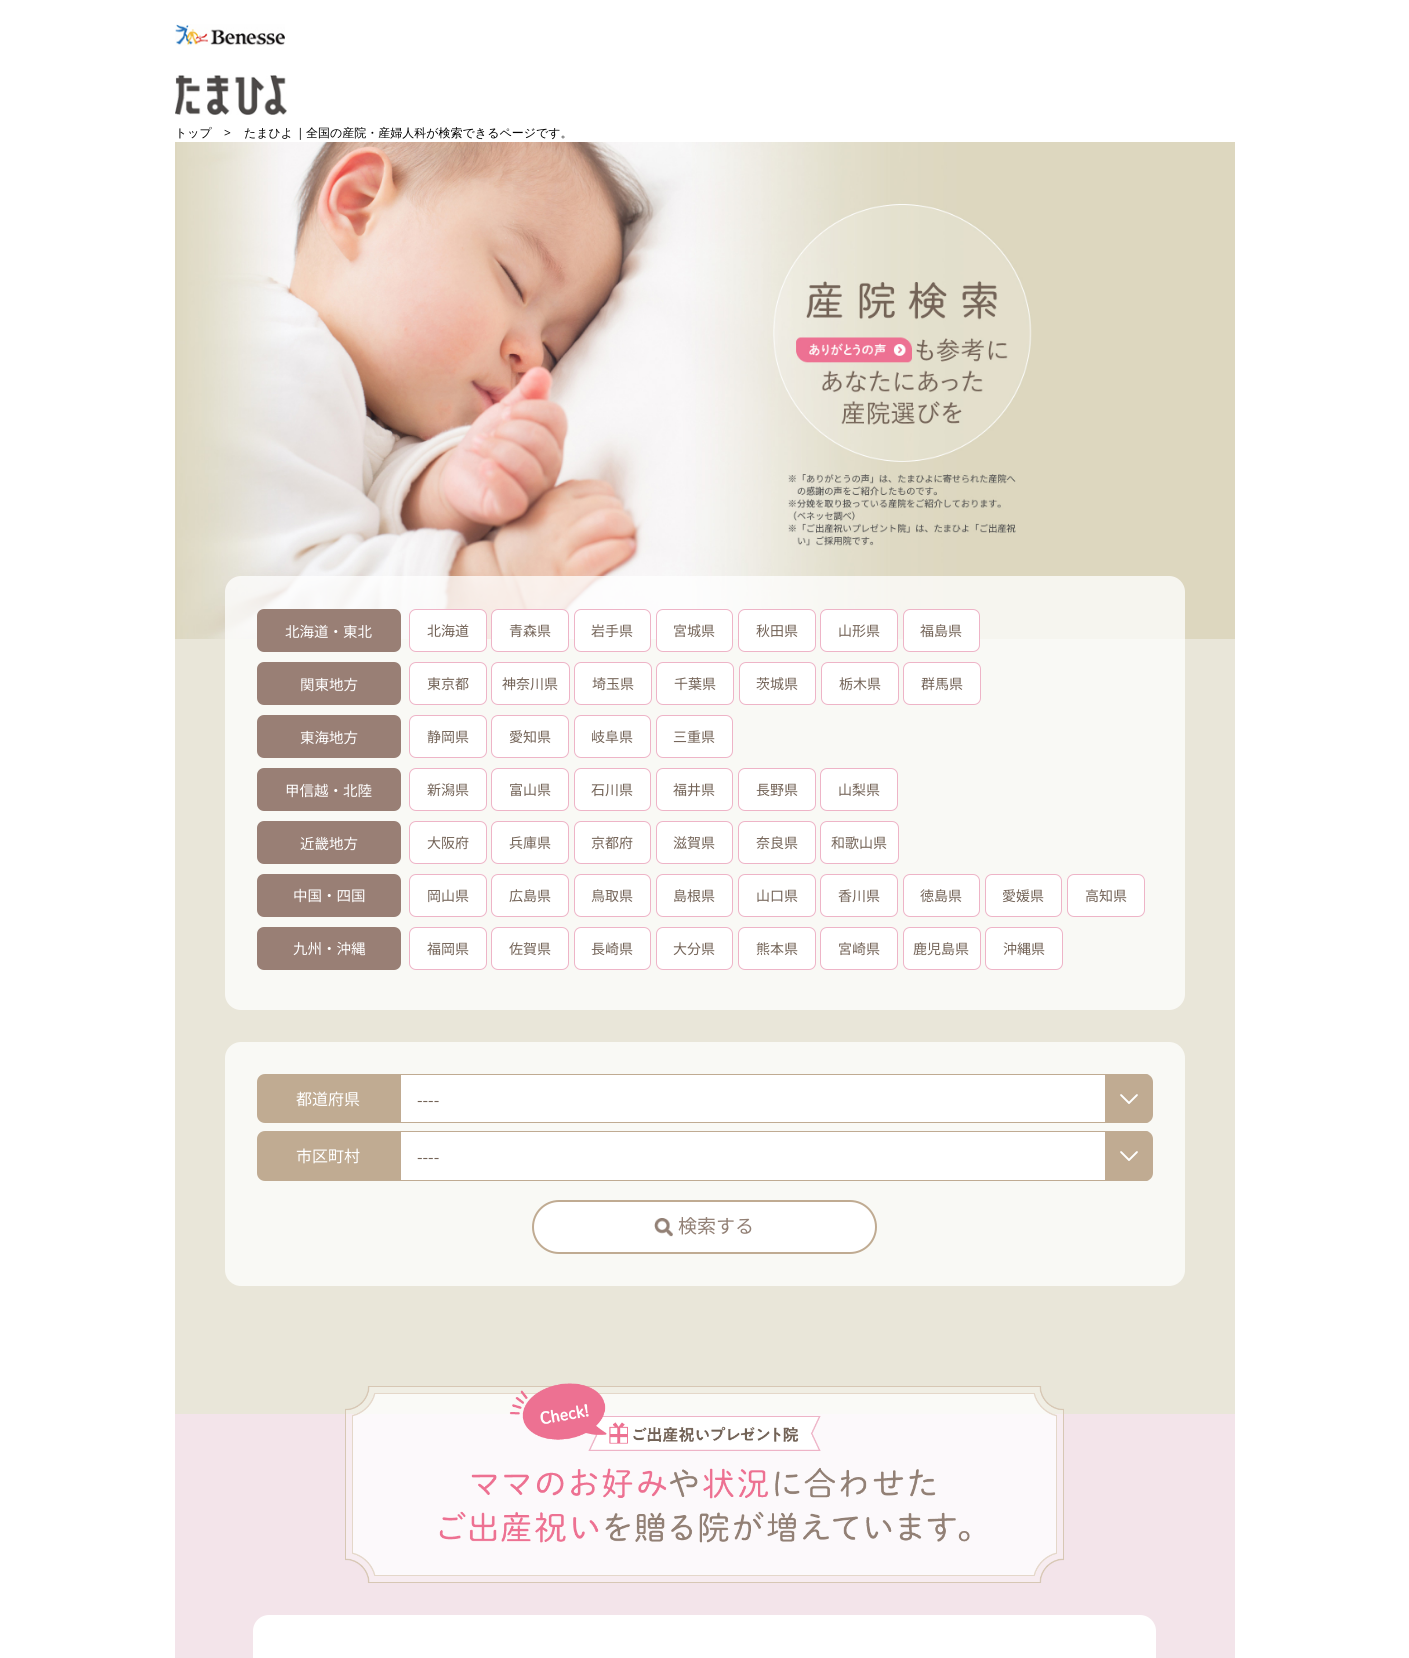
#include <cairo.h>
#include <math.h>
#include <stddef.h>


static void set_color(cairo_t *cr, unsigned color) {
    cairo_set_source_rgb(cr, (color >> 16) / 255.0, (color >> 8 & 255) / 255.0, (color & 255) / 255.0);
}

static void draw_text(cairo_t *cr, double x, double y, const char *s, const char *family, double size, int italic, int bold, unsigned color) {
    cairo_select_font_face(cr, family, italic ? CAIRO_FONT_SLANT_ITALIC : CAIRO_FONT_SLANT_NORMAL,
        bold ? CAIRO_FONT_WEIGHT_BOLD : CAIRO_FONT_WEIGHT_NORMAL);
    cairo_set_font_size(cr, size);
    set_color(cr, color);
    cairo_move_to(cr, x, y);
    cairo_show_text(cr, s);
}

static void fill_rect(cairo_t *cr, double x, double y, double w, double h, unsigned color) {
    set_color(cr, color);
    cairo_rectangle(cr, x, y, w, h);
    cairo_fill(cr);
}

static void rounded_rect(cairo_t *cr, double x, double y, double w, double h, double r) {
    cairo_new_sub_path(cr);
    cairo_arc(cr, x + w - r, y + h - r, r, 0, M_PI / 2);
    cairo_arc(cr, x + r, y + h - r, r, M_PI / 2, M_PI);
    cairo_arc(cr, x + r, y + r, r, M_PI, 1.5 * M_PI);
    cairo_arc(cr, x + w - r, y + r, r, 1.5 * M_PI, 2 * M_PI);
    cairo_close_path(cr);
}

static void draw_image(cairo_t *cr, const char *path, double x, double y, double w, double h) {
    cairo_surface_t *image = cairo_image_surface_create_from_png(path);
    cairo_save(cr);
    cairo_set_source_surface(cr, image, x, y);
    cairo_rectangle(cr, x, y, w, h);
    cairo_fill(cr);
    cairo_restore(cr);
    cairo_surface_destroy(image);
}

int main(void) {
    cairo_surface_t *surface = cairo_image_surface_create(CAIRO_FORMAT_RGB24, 1409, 1658);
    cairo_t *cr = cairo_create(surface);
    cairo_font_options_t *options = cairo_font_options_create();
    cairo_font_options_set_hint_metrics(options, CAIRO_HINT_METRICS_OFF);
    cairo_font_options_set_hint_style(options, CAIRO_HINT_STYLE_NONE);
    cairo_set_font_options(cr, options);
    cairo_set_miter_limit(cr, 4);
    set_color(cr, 0xFFFFFF);
    cairo_paint(cr);
    draw_image(cr, "assets/img1.png", 175, 24, 110, 22);
    draw_image(cr, "assets/img2.png", 175, 75, 112, 40);
    draw_text(cr, 175, 137, "トップ", "WenQuanYi Zen Hei Medium", 12, 0, 0, 0x000000);
    draw_text(cr, 224, 137, ">", "Open Sans", 12, 0, 0, 0x000000);
    draw_text(cr, 244, 137, "たまひよ", "WenQuanYi Zen Hei Medium", 12, 0, 0, 0x000000);
    draw_text(cr, 297, 137, "|", "Open Sans", 12, 0, 0, 0x000000);
    draw_text(cr, 306, 137, "全国の産院・産婦人科が検索できるページです。", "WenQuanYi Zen Hei Medium", 12, 0, 0, 0x000000);
    fill_rect(cr, 175, 142, 1060, 497, 0xDDD7BF);
    draw_image(cr, "assets/img3.png", 177, 142, 855, 497);
    fill_rect(cr, 175, 639, 1060, 775, 0xE9E6D9);
    cairo_set_source_rgba(cr, 1, 1, 1, 0.75);
    rounded_rect(cr, 225, 576, 960, 434, 16);
    cairo_fill(cr);
    set_color(cr, 0x997F75);
    rounded_rect(cr, 257, 609, 144, 43, 7);
    cairo_fill(cr);
    draw_text(cr, 285, 637, "北海道・東北", "Noto Sans JP", 14.5, 0, 0, 0xFFFFFF);
    rounded_rect(cr, 409.5, 609.5, 77, 42, 6.5);
    cairo_fill_preserve(cr);
    set_color(cr, 0xEEB4C7);
    cairo_set_line_width(cr, 1);
    cairo_stroke(cr);
    draw_text(cr, 427, 636, "北海道", "Noto Sans JP", 14, 0, 0, 0x736357);
    set_color(cr, 0xFFFFFF);
    rounded_rect(cr, 491.5, 609.5, 77, 42, 6.5);
    cairo_fill_preserve(cr);
    set_color(cr, 0xEEB4C7);
    cairo_stroke(cr);
    draw_text(cr, 509, 636, "青森県", "Noto Sans JP", 14, 0, 0, 0x736357);
    set_color(cr, 0xFFFFFF);
    rounded_rect(cr, 574.5, 609.5, 76, 42, 6.5);
    cairo_fill_preserve(cr);
    set_color(cr, 0xEEB4C7);
    cairo_stroke(cr);
    draw_text(cr, 591, 636, "岩手県", "Noto Sans JP", 14, 0, 0, 0x736357);
    set_color(cr, 0xFFFFFF);
    rounded_rect(cr, 656.5, 609.5, 76, 42, 6.5);
    cairo_fill_preserve(cr);
    set_color(cr, 0xEEB4C7);
    cairo_stroke(cr);
    draw_text(cr, 673, 636, "宮城県", "Noto Sans JP", 14, 0, 0, 0x736357);
    set_color(cr, 0xFFFFFF);
    rounded_rect(cr, 738.5, 609.5, 77, 42, 6.5);
    cairo_fill_preserve(cr);
    set_color(cr, 0xEEB4C7);
    cairo_stroke(cr);
    draw_text(cr, 756, 636, "秋田県", "Noto Sans JP", 14, 0, 0, 0x736357);
    set_color(cr, 0xFFFFFF);
    rounded_rect(cr, 820.5, 609.5, 77, 42, 6.5);
    cairo_fill_preserve(cr);
    set_color(cr, 0xEEB4C7);
    cairo_stroke(cr);
    draw_text(cr, 838, 636, "山形県", "Noto Sans JP", 14, 0, 0, 0x736357);
    set_color(cr, 0xFFFFFF);
    rounded_rect(cr, 903.5, 609.5, 76, 42, 6.5);
    cairo_fill_preserve(cr);
    set_color(cr, 0xEEB4C7);
    cairo_stroke(cr);
    draw_text(cr, 920, 636, "福島県", "Noto Sans JP", 14, 0, 0, 0x736357);
    set_color(cr, 0x997F75);
    rounded_rect(cr, 257, 662, 144, 43, 7);
    cairo_fill(cr);
    draw_text(cr, 300, 690, "関東地方", "Noto Sans JP", 14.5, 0, 0, 0xFFFFFF);
    rounded_rect(cr, 409.5, 662.5, 77, 42, 6.5);
    cairo_fill_preserve(cr);
    set_color(cr, 0xEEB4C7);
    cairo_stroke(cr);
    draw_text(cr, 427, 689, "東京都", "Noto Sans JP", 14, 0, 0, 0x736357);
    set_color(cr, 0xFFFFFF);
    rounded_rect(cr, 491.5, 662.5, 78, 42, 6.5);
    cairo_fill_preserve(cr);
    set_color(cr, 0xEEB4C7);
    cairo_stroke(cr);
    draw_text(cr, 502, 689, "神奈川県", "Noto Sans JP", 14, 0, 0, 0x736357);
    set_color(cr, 0xFFFFFF);
    rounded_rect(cr, 574.5, 662.5, 77, 42, 6.5);
    cairo_fill_preserve(cr);
    set_color(cr, 0xEEB4C7);
    cairo_stroke(cr);
    draw_text(cr, 592, 689, "埼玉県", "Noto Sans JP", 14, 0, 0, 0x736357);
    set_color(cr, 0xFFFFFF);
    rounded_rect(cr, 656.5, 662.5, 77, 42, 6.5);
    cairo_fill_preserve(cr);
    set_color(cr, 0xEEB4C7);
    cairo_stroke(cr);
    draw_text(cr, 674, 689, "千葉県", "Noto Sans JP", 14, 0, 0, 0x736357);
    set_color(cr, 0xFFFFFF);
    rounded_rect(cr, 739.5, 662.5, 76, 42, 6.5);
    cairo_fill_preserve(cr);
    set_color(cr, 0xEEB4C7);
    cairo_stroke(cr);
    draw_text(cr, 756, 689, "茨城県", "Noto Sans JP", 14, 0, 0, 0x736357);
    set_color(cr, 0xFFFFFF);
    rounded_rect(cr, 821.5, 662.5, 77, 42, 6.5);
    cairo_fill_preserve(cr);
    set_color(cr, 0xEEB4C7);
    cairo_stroke(cr);
    draw_text(cr, 839, 689, "栃木県", "Noto Sans JP", 14, 0, 0, 0x736357);
    set_color(cr, 0xFFFFFF);
    rounded_rect(cr, 903.5, 662.5, 77, 42, 6.5);
    cairo_fill_preserve(cr);
    set_color(cr, 0xEEB4C7);
    cairo_stroke(cr);
    draw_text(cr, 921, 689, "群馬県", "Noto Sans JP", 14, 0, 0, 0x736357);
    set_color(cr, 0x997F75);
    rounded_rect(cr, 257, 715, 144, 43, 7);
    cairo_fill(cr);
    draw_text(cr, 300, 743, "東海地方", "Noto Sans JP", 14.5, 0, 0, 0xFFFFFF);
    rounded_rect(cr, 409.5, 715.5, 77, 42, 6.5);
    cairo_fill_preserve(cr);
    set_color(cr, 0xEEB4C7);
    cairo_stroke(cr);
    draw_text(cr, 427, 742, "静岡県", "Noto Sans JP", 14, 0, 0, 0x736357);
    set_color(cr, 0xFFFFFF);
    rounded_rect(cr, 491.5, 715.5, 77, 42, 6.5);
    cairo_fill_preserve(cr);
    set_color(cr, 0xEEB4C7);
    cairo_stroke(cr);
    draw_text(cr, 509, 742, "愛知県", "Noto Sans JP", 14, 0, 0, 0x736357);
    set_color(cr, 0xFFFFFF);
    rounded_rect(cr, 574.5, 715.5, 76, 42, 6.5);
    cairo_fill_preserve(cr);
    set_color(cr, 0xEEB4C7);
    cairo_stroke(cr);
    draw_text(cr, 591, 742, "岐阜県", "Noto Sans JP", 14, 0, 0, 0x736357);
    set_color(cr, 0xFFFFFF);
    rounded_rect(cr, 656.5, 715.5, 76, 42, 6.5);
    cairo_fill_preserve(cr);
    set_color(cr, 0xEEB4C7);
    cairo_stroke(cr);
    draw_text(cr, 673, 742, "三重県", "Noto Sans JP", 14, 0, 0, 0x736357);
    set_color(cr, 0x997F75);
    rounded_rect(cr, 257, 768, 144, 43, 7);
    cairo_fill(cr);
    draw_text(cr, 285, 796, "甲信越・北陸", "Noto Sans JP", 14.5, 0, 0, 0xFFFFFF);
    rounded_rect(cr, 409.5, 768.5, 77, 42, 6.5);
    cairo_fill_preserve(cr);
    set_color(cr, 0xEEB4C7);
    cairo_stroke(cr);
    draw_text(cr, 427, 795, "新潟県", "Noto Sans JP", 14, 0, 0, 0x736357);
    set_color(cr, 0xFFFFFF);
    rounded_rect(cr, 491.5, 768.5, 77, 42, 6.5);
    cairo_fill_preserve(cr);
    set_color(cr, 0xEEB4C7);
    cairo_stroke(cr);
    draw_text(cr, 509, 795, "富山県", "Noto Sans JP", 14, 0, 0, 0x736357);
    set_color(cr, 0xFFFFFF);
    rounded_rect(cr, 574.5, 768.5, 76, 42, 6.5);
    cairo_fill_preserve(cr);
    set_color(cr, 0xEEB4C7);
    cairo_stroke(cr);
    draw_text(cr, 591, 795, "石川県", "Noto Sans JP", 14, 0, 0, 0x736357);
    set_color(cr, 0xFFFFFF);
    rounded_rect(cr, 656.5, 768.5, 76, 42, 6.5);
    cairo_fill_preserve(cr);
    set_color(cr, 0xEEB4C7);
    cairo_stroke(cr);
    draw_text(cr, 673, 795, "福井県", "Noto Sans JP", 14, 0, 0, 0x736357);
    set_color(cr, 0xFFFFFF);
    rounded_rect(cr, 738.5, 768.5, 77, 42, 6.5);
    cairo_fill_preserve(cr);
    set_color(cr, 0xEEB4C7);
    cairo_stroke(cr);
    draw_text(cr, 756, 795, "長野県", "Noto Sans JP", 14, 0, 0, 0x736357);
    set_color(cr, 0xFFFFFF);
    rounded_rect(cr, 820.5, 768.5, 77, 42, 6.5);
    cairo_fill_preserve(cr);
    set_color(cr, 0xEEB4C7);
    cairo_stroke(cr);
    draw_text(cr, 838, 795, "山梨県", "Noto Sans JP", 14, 0, 0, 0x736357);
    set_color(cr, 0x997F75);
    rounded_rect(cr, 257, 821, 144, 43, 7);
    cairo_fill(cr);
    draw_text(cr, 300, 849, "近畿地方", "Noto Sans JP", 14.5, 0, 0, 0xFFFFFF);
    rounded_rect(cr, 409.5, 821.5, 77, 42, 6.5);
    cairo_fill_preserve(cr);
    set_color(cr, 0xEEB4C7);
    cairo_stroke(cr);
    draw_text(cr, 427, 848, "大阪府", "Noto Sans JP", 14, 0, 0, 0x736357);
    set_color(cr, 0xFFFFFF);
    rounded_rect(cr, 491.5, 821.5, 77, 42, 6.5);
    cairo_fill_preserve(cr);
    set_color(cr, 0xEEB4C7);
    cairo_stroke(cr);
    draw_text(cr, 509, 848, "兵庫県", "Noto Sans JP", 14, 0, 0, 0x736357);
    set_color(cr, 0xFFFFFF);
    rounded_rect(cr, 574.5, 821.5, 76, 42, 6.5);
    cairo_fill_preserve(cr);
    set_color(cr, 0xEEB4C7);
    cairo_stroke(cr);
    draw_text(cr, 591, 848, "京都府", "Noto Sans JP", 14, 0, 0, 0x736357);
    set_color(cr, 0xFFFFFF);
    rounded_rect(cr, 656.5, 821.5, 76, 42, 6.5);
    cairo_fill_preserve(cr);
    set_color(cr, 0xEEB4C7);
    cairo_stroke(cr);
    draw_text(cr, 673, 848, "滋賀県", "Noto Sans JP", 14, 0, 0, 0x736357);
    set_color(cr, 0xFFFFFF);
    rounded_rect(cr, 738.5, 821.5, 77, 42, 6.5);
    cairo_fill_preserve(cr);
    set_color(cr, 0xEEB4C7);
    cairo_stroke(cr);
    draw_text(cr, 756, 848, "奈良県", "Noto Sans JP", 14, 0, 0, 0x736357);
    set_color(cr, 0xFFFFFF);
    rounded_rect(cr, 820.5, 821.5, 78, 42, 6.5);
    cairo_fill_preserve(cr);
    set_color(cr, 0xEEB4C7);
    cairo_stroke(cr);
    draw_text(cr, 831, 848, "和歌山県", "Noto Sans JP", 14, 0, 0, 0x736357);
    set_color(cr, 0x997F75);
    rounded_rect(cr, 257, 874, 144, 43, 7);
    cairo_fill(cr);
    draw_text(cr, 293, 901, "中国・四国", "Noto Sans JP", 14.5, 0, 0, 0xFFFFFF);
    rounded_rect(cr, 409.5, 874.5, 77, 42, 6.5);
    cairo_fill_preserve(cr);
    set_color(cr, 0xEEB4C7);
    cairo_stroke(cr);
    draw_text(cr, 427, 901, "岡山県", "Noto Sans JP", 14, 0, 0, 0x736357);
    set_color(cr, 0xFFFFFF);
    rounded_rect(cr, 491.5, 874.5, 77, 42, 6.5);
    cairo_fill_preserve(cr);
    set_color(cr, 0xEEB4C7);
    cairo_stroke(cr);
    draw_text(cr, 509, 901, "広島県", "Noto Sans JP", 14, 0, 0, 0x736357);
    set_color(cr, 0xFFFFFF);
    rounded_rect(cr, 574.5, 874.5, 76, 42, 6.5);
    cairo_fill_preserve(cr);
    set_color(cr, 0xEEB4C7);
    cairo_stroke(cr);
    draw_text(cr, 591, 901, "鳥取県", "Noto Sans JP", 14, 0, 0, 0x736357);
    set_color(cr, 0xFFFFFF);
    rounded_rect(cr, 656.5, 874.5, 76, 42, 6.5);
    cairo_fill_preserve(cr);
    set_color(cr, 0xEEB4C7);
    cairo_stroke(cr);
    draw_text(cr, 673, 901, "島根県", "Noto Sans JP", 14, 0, 0, 0x736357);
    set_color(cr, 0xFFFFFF);
    rounded_rect(cr, 738.5, 874.5, 77, 42, 6.5);
    cairo_fill_preserve(cr);
    set_color(cr, 0xEEB4C7);
    cairo_stroke(cr);
    draw_text(cr, 756, 901, "山口県", "Noto Sans JP", 14, 0, 0, 0x736357);
    set_color(cr, 0xFFFFFF);
    rounded_rect(cr, 820.5, 874.5, 77, 42, 6.5);
    cairo_fill_preserve(cr);
    set_color(cr, 0xEEB4C7);
    cairo_stroke(cr);
    draw_text(cr, 838, 901, "香川県", "Noto Sans JP", 14, 0, 0, 0x736357);
    set_color(cr, 0xFFFFFF);
    rounded_rect(cr, 903.5, 874.5, 76, 42, 6.5);
    cairo_fill_preserve(cr);
    set_color(cr, 0xEEB4C7);
    cairo_stroke(cr);
    draw_text(cr, 920, 901, "徳島県", "Noto Sans JP", 14, 0, 0, 0x736357);
    set_color(cr, 0xFFFFFF);
    rounded_rect(cr, 985.5, 874.5, 76, 42, 6.5);
    cairo_fill_preserve(cr);
    set_color(cr, 0xEEB4C7);
    cairo_stroke(cr);
    draw_text(cr, 1002, 901, "愛媛県", "Noto Sans JP", 14, 0, 0, 0x736357);
    set_color(cr, 0xFFFFFF);
    rounded_rect(cr, 1067.5, 874.5, 77, 42, 6.5);
    cairo_fill_preserve(cr);
    set_color(cr, 0xEEB4C7);
    cairo_stroke(cr);
    draw_text(cr, 1085, 901, "高知県", "Noto Sans JP", 14, 0, 0, 0x736357);
    set_color(cr, 0x997F75);
    rounded_rect(cr, 257, 927, 144, 43, 7);
    cairo_fill(cr);
    draw_text(cr, 293, 954, "九州・沖縄", "Noto Sans JP", 14.5, 0, 0, 0xFFFFFF);
    rounded_rect(cr, 409.5, 927.5, 77, 42, 6.5);
    cairo_fill_preserve(cr);
    set_color(cr, 0xEEB4C7);
    cairo_stroke(cr);
    draw_text(cr, 427, 954, "福岡県", "Noto Sans JP", 14, 0, 0, 0x736357);
    set_color(cr, 0xFFFFFF);
    rounded_rect(cr, 491.5, 927.5, 77, 42, 6.5);
    cairo_fill_preserve(cr);
    set_color(cr, 0xEEB4C7);
    cairo_stroke(cr);
    draw_text(cr, 509, 954, "佐賀県", "Noto Sans JP", 14, 0, 0, 0x736357);
    set_color(cr, 0xFFFFFF);
    rounded_rect(cr, 574.5, 927.5, 76, 42, 6.5);
    cairo_fill_preserve(cr);
    set_color(cr, 0xEEB4C7);
    cairo_stroke(cr);
    draw_text(cr, 591, 954, "長崎県", "Noto Sans JP", 14, 0, 0, 0x736357);
    set_color(cr, 0xFFFFFF);
    rounded_rect(cr, 656.5, 927.5, 76, 42, 6.5);
    cairo_fill_preserve(cr);
    set_color(cr, 0xEEB4C7);
    cairo_stroke(cr);
    draw_text(cr, 673, 954, "大分県", "Noto Sans JP", 14, 0, 0, 0x736357);
    set_color(cr, 0xFFFFFF);
    rounded_rect(cr, 738.5, 927.5, 77, 42, 6.5);
    cairo_fill_preserve(cr);
    set_color(cr, 0xEEB4C7);
    cairo_stroke(cr);
    draw_text(cr, 756, 954, "熊本県", "Noto Sans JP", 14, 0, 0, 0x736357);
    set_color(cr, 0xFFFFFF);
    rounded_rect(cr, 820.5, 927.5, 77, 42, 6.5);
    cairo_fill_preserve(cr);
    set_color(cr, 0xEEB4C7);
    cairo_stroke(cr);
    draw_text(cr, 838, 954, "宮崎県", "Noto Sans JP", 14, 0, 0, 0x736357);
    set_color(cr, 0xFFFFFF);
    rounded_rect(cr, 903.5, 927.5, 77, 42, 6.5);
    cairo_fill_preserve(cr);
    set_color(cr, 0xEEB4C7);
    cairo_stroke(cr);
    draw_text(cr, 913, 954, "鹿児島県", "Noto Sans JP", 14, 0, 0, 0x736357);
    set_color(cr, 0xFFFFFF);
    rounded_rect(cr, 985.5, 927.5, 77, 42, 6.5);
    cairo_fill_preserve(cr);
    set_color(cr, 0xEEB4C7);
    cairo_stroke(cr);
    draw_text(cr, 1003, 954, "沖縄県", "Noto Sans JP", 14, 0, 0, 0x736357);
    set_color(cr, 0xF9F9F5);
    rounded_rect(cr, 225, 1042, 960, 244, 16);
    cairo_fill(cr);
    set_color(cr, 0xC0AB92);
    cairo_new_path(cr);
    cairo_move_to(cr, 265, 1074);
    cairo_line_to(cr, 401, 1074);
    cairo_line_to(cr, 401, 1123);
    cairo_line_to(cr, 265, 1123);
    cairo_curve_to(cr, 260.5, 1123, 257, 1119.5, 257, 1115);
    cairo_line_to(cr, 257, 1082);
    cairo_curve_to(cr, 257, 1077.5, 260.5, 1074, 265, 1074);
    cairo_close_path(cr);
    cairo_fill(cr);
    draw_text(cr, 296, 1105, "都道府県", "Noto Sans JP", 16, 0, 0, 0xFFFFFF);
    cairo_new_path(cr);
    cairo_move_to(cr, 401, 1074);
    cairo_line_to(cr, 1145, 1074);
    cairo_curve_to(cr, 1149.5, 1074, 1153, 1077.5, 1153, 1082);
    cairo_line_to(cr, 1153, 1115);
    cairo_curve_to(cr, 1153, 1119.5, 1149.5, 1123, 1145, 1123);
    cairo_line_to(cr, 401, 1123);
    cairo_close_path(cr);
    cairo_fill(cr);
    cairo_save(cr);
    rounded_rect(cr, 257, 1074, 896, 49, 8);
    cairo_clip(cr);
    fill_rect(cr, 401, 1074, 752, 1, 0xC0AB92);
    fill_rect(cr, 401, 1122, 752, 1, 0xC0AB92);
    cairo_restore(cr);
    draw_text(cr, 417, 1106, "----", "Noto Sans JP", 16, 0, 0, 0x736357);
    set_color(cr, 0xC0AB92);
    cairo_new_path(cr);
    cairo_move_to(cr, 1105, 1074);
    cairo_line_to(cr, 1145, 1074);
    cairo_curve_to(cr, 1149.5, 1074, 1153, 1077.5, 1153, 1082);
    cairo_line_to(cr, 1153, 1115);
    cairo_curve_to(cr, 1153, 1119.5, 1149.5, 1123, 1145, 1123);
    cairo_line_to(cr, 1105, 1123);
    cairo_close_path(cr);
    cairo_fill(cr);
    draw_image(cr, "assets/img4.png", 1120, 1094, 18, 10);
    cairo_new_path(cr);
    cairo_move_to(cr, 265, 1131);
    cairo_line_to(cr, 401, 1131);
    cairo_line_to(cr, 401, 1181);
    cairo_line_to(cr, 265, 1181);
    cairo_curve_to(cr, 260.5, 1181, 257, 1177.5, 257, 1173);
    cairo_line_to(cr, 257, 1139);
    cairo_curve_to(cr, 257, 1134.5, 260.5, 1131, 265, 1131);
    cairo_close_path(cr);
    cairo_fill(cr);
    draw_text(cr, 296, 1162, "市区町村", "Noto Sans JP", 16, 0, 0, 0xFFFFFF);
    cairo_new_path(cr);
    cairo_move_to(cr, 401, 1131);
    cairo_line_to(cr, 1145, 1131);
    cairo_curve_to(cr, 1149.5, 1131, 1153, 1134.5, 1153, 1139);
    cairo_line_to(cr, 1153, 1173);
    cairo_curve_to(cr, 1153, 1177.5, 1149.5, 1181, 1145, 1181);
    cairo_line_to(cr, 401, 1181);
    cairo_close_path(cr);
    cairo_fill(cr);
    cairo_save(cr);
    rounded_rect(cr, 257, 1131, 896, 50, 8);
    cairo_clip(cr);
    fill_rect(cr, 401, 1131, 752, 1, 0xC0AB92);
    fill_rect(cr, 401, 1180, 752, 1, 0xC0AB92);
    cairo_restore(cr);
    draw_text(cr, 417, 1163, "----", "Noto Sans JP", 16, 0, 0, 0x736357);
    set_color(cr, 0xC0AB92);
    cairo_new_path(cr);
    cairo_move_to(cr, 1105, 1131);
    cairo_line_to(cr, 1145, 1131);
    cairo_curve_to(cr, 1149.5, 1131, 1153, 1134.5, 1153, 1139);
    cairo_line_to(cr, 1153, 1173);
    cairo_curve_to(cr, 1153, 1177.5, 1149.5, 1181, 1145, 1181);
    cairo_line_to(cr, 1105, 1181);
    cairo_close_path(cr);
    cairo_fill(cr);
    draw_image(cr, "assets/img4.png", 1120, 1151, 18, 10);
    set_color(cr, 0xFFFFFF);
    rounded_rect(cr, 533, 1201, 343, 52, 26);
    cairo_fill_preserve(cr);
    set_color(cr, 0xC0AB92);
    cairo_set_line_width(cr, 2);
    cairo_stroke(cr);
    draw_image(cr, "assets/img5.png", 654, 1218, 19, 19);
    draw_text(cr, 678, 1233, "検索する", "Noto Sans JP", 19, 0, 0, 0x928075);
    fill_rect(cr, 175, 1414, 1060, 244, 0xF3E4EA);
    draw_image(cr, "assets/img6.png", 345, 1383, 719, 200);
    set_color(cr, 0xFFFFFF);
    rounded_rect(cr, 253, 1615, 903, 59, 16);
    cairo_fill(cr);
    cairo_surface_write_to_png(surface, "output.png");
    cairo_font_options_destroy(options);
    cairo_destroy(cr);
    cairo_surface_destroy(surface);
    return 0;
}
